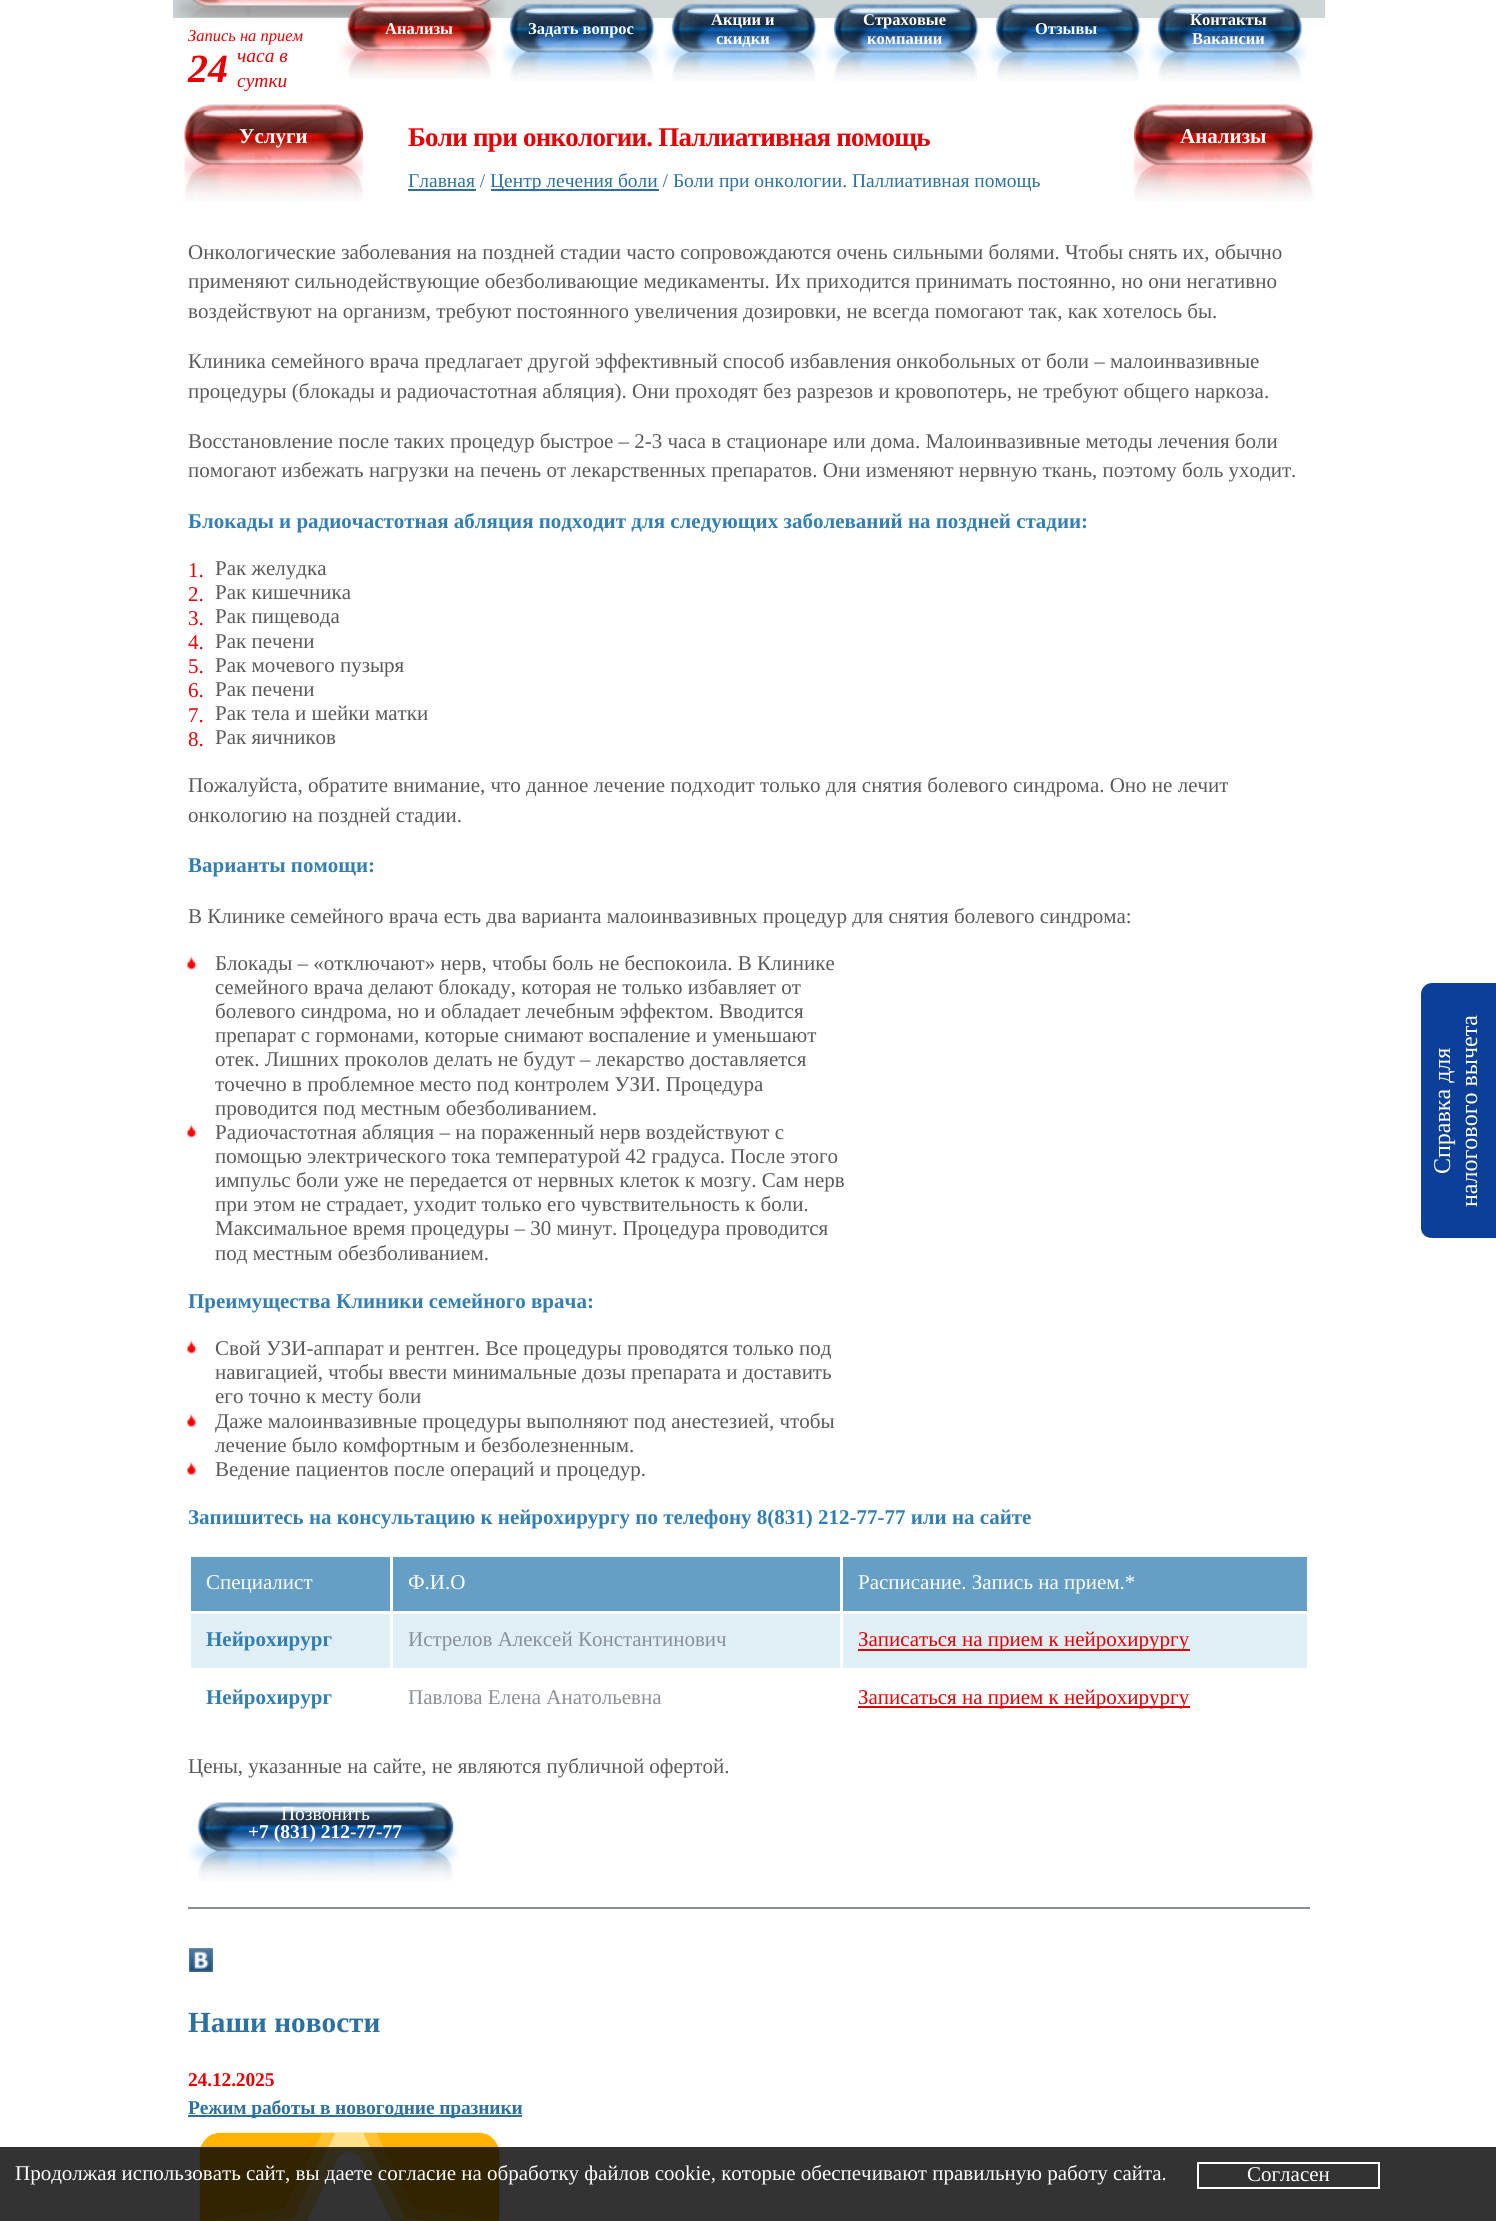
#include <cairo.h>
#include <math.h>
#include <stddef.h>


static void set_color(cairo_t *cr, unsigned color) {
    cairo_set_source_rgb(cr, (color >> 16) / 255.0, (color >> 8 & 255) / 255.0, (color & 255) / 255.0);
}

static void draw_text(cairo_t *cr, double x, double y, const char *s, const char *family, double size, int italic, int bold, unsigned color) {
    cairo_select_font_face(cr, family, italic ? CAIRO_FONT_SLANT_ITALIC : CAIRO_FONT_SLANT_NORMAL,
        bold ? CAIRO_FONT_WEIGHT_BOLD : CAIRO_FONT_WEIGHT_NORMAL);
    cairo_set_font_size(cr, size);
    set_color(cr, color);
    cairo_move_to(cr, x, y);
    cairo_show_text(cr, s);
}

static void draw_spaced(cairo_t *cr, double x, double y, const char *s, double letter, double word) {
    cairo_move_to(cr, x, y);
    while (*s) {
        char ch[5] = {0};
        int n = 0;
        do ch[n++] = *s++; while ((*s & 0xC0) == 0x80);
        cairo_show_text(cr, ch);
        cairo_rel_move_to(cr, letter + word * (*ch == ' '), 0);
    }
}

static void fill_rect(cairo_t *cr, double x, double y, double w, double h, unsigned color) {
    set_color(cr, color);
    cairo_rectangle(cr, x, y, w, h);
    cairo_fill(cr);
}

static void draw_image(cairo_t *cr, const char *path, double x, double y, double w, double h) {
    cairo_surface_t *image = cairo_image_surface_create_from_png(path);
    cairo_save(cr);
    cairo_set_source_surface(cr, image, x, y);
    cairo_rectangle(cr, x, y, w, h);
    cairo_fill(cr);
    cairo_restore(cr);
    cairo_surface_destroy(image);
}

int main(void) {
    cairo_surface_t *surface = cairo_image_surface_create(CAIRO_FORMAT_RGB24, 1496, 2221);
    cairo_t *cr = cairo_create(surface);
    cairo_font_options_t *options = cairo_font_options_create();
    cairo_font_options_set_hint_metrics(options, CAIRO_HINT_METRICS_OFF);
    cairo_font_options_set_hint_style(options, CAIRO_HINT_STYLE_NONE);
    cairo_set_font_options(cr, options);
    cairo_set_miter_limit(cr, 4);
    set_color(cr, 0xFFFFFF);
    cairo_paint(cr);
    fill_rect(cr, 173, 0, 1152, 18, 0xCDD5D6);
    draw_image(cr, "assets/img1.png", 173, 0, 333, 18);
    draw_text(cr, 188, 41, "Запись на прием", "Liberation Serif", 16.5, 1, 0, 0xE60004);
    draw_text(cr, 188, 82, "24", "Liberation Serif", 40, 1, 1, 0xE60004);
    draw_text(cr, 237, 62, "часа в", "Liberation Serif", 19.5, 1, 0, 0xE60004);
    draw_text(cr, 237, 87, "сутки", "Liberation Serif", 19.5, 1, 0, 0xE60004);
    draw_image(cr, "assets/img2.png", 338, 2, 159, 77);
    draw_text(cr, 385, 34, "Анализы", "Liberation Serif", 16.5, 0, 1, 0xFFFFFF);
    draw_image(cr, "assets/img3.png", 500, 3, 160, 78);
    draw_text(cr, 528, 34, "Задать вопрос", "Liberation Serif", 16.5, 0, 1, 0xFFFFFF);
    draw_image(cr, "assets/img4.png", 662, 3, 160, 78);
    draw_text(cr, 711, 25, "Акции и", "Liberation Serif", 16.5, 0, 1, 0xFFFFFF);
    draw_text(cr, 716, 44, "скидки", "Liberation Serif", 16.5, 0, 1, 0xFFFFFF);
    draw_image(cr, "assets/img5.png", 824, 3, 160, 78);
    draw_text(cr, 863, 25, "Страховые", "Liberation Serif", 16.5, 0, 1, 0xFFFFFF);
    draw_text(cr, 867, 44, "компании", "Liberation Serif", 16.5, 0, 1, 0xFFFFFF);
    draw_image(cr, "assets/img5.png", 986, 3, 160, 78);
    draw_text(cr, 1035, 34, "Отзывы", "Liberation Serif", 16.5, 0, 1, 0xFFFFFF);
    draw_image(cr, "assets/img6.png", 1148, 3, 160, 78);
    draw_text(cr, 1190, 25, "Контакты", "Liberation Serif", 16.5, 0, 1, 0xFFFFFF);
    draw_text(cr, 1192, 44, "Вакансии", "Liberation Serif", 16.5, 0, 1, 0xFFFFFF);
    cairo_set_font_size(cr, 27);
    set_color(cr, 0xE60004);
    draw_spaced(cr, 408, 146, "Боли при онкологии. Паллиативная помощь", -0.75, 0);
    draw_text(cr, 408, 187, "Главная /", "Liberation Serif", 19.5, 0, 0, 0x2C719F);
    fill_rect(cr, 408, 189, 68, 2, 0x2C719F);
    fill_rect(cr, 491, 189, 168, 2, 0x2C719F);
    draw_text(cr, 490, 187, "Центр лечения боли / Боли при онкологии. Паллиативная помощь", "Liberation Serif", 19.5, 0, 0, 0x2C719F);
    draw_text(cr, 188, 259, "Онкологические заболевания на поздней стадии часто сопровождаются очень сильными болями. Чтобы снять их, обычно", "Liberation Serif", 21, 0, 0, 0x5A5A5A);
    draw_text(cr, 188, 288, "применяют сильнодействующие обезболивающие медикаменты. Их приходится принимать постоянно, но они негативно", "Liberation Serif", 21, 0, 0, 0x5A5A5A);
    draw_text(cr, 188, 318, "воздействуют на организм, требуют постоянного увеличения дозировки, не всегда помогают так, как хотелось бы.", "Liberation Serif", 21, 0, 0, 0x5A5A5A);
    draw_text(cr, 188, 368, "Клиника семейного врача предлагает другой эффективный способ избавления онкобольных от боли – малоинвазивные", "Liberation Serif", 21, 0, 0, 0x5A5A5A);
    draw_text(cr, 188, 398, "процедуры (блокады и радиочастотная абляция). Они проходят без разрезов и кровопотерь, не требуют общего наркоза.", "Liberation Serif", 21, 0, 0, 0x5A5A5A);
    draw_text(cr, 188, 448, "Восстановление после таких процедур быстрое – 2-3 часа в стационаре или дома. Малоинвазивные методы лечения боли", "Liberation Serif", 21, 0, 0, 0x5A5A5A);
    draw_text(cr, 188, 477, "помогают избежать нагрузки на печень от лекарственных препаратов. Они изменяют нервную ткань, поэтому боль уходит.", "Liberation Serif", 21, 0, 0, 0x5A5A5A);
    draw_text(cr, 188, 528, "Блокады и радиочастотная абляция подходит для следующих заболеваний на поздней стадии:", "Liberation Serif", 21, 0, 1, 0x337FB2);
    draw_text(cr, 188, 577, "1.", "Liberation Serif", 21, 0, 0, 0xE60004);
    draw_text(cr, 215, 575, "Рак желудка", "Liberation Serif", 21, 0, 0, 0x5A5A5A);
    draw_text(cr, 188, 601, "2.", "Liberation Serif", 21, 0, 0, 0xE60004);
    draw_text(cr, 215, 599, "Рак кишечника", "Liberation Serif", 21, 0, 0, 0x5A5A5A);
    draw_text(cr, 188, 625, "3.", "Liberation Serif", 21, 0, 0, 0xE60004);
    draw_text(cr, 215, 623, "Рак пищевода", "Liberation Serif", 21, 0, 0, 0x5A5A5A);
    draw_text(cr, 188, 649, "4.", "Liberation Serif", 21, 0, 0, 0xE60004);
    draw_text(cr, 215, 648, "Рак печени", "Liberation Serif", 21, 0, 0, 0x5A5A5A);
    draw_text(cr, 188, 673, "5.", "Liberation Serif", 21, 0, 0, 0xE60004);
    draw_text(cr, 215, 672, "Рак мочевого пузыря", "Liberation Serif", 21, 0, 0, 0x5A5A5A);
    draw_text(cr, 188, 697, "6.", "Liberation Serif", 21, 0, 0, 0xE60004);
    draw_text(cr, 215, 696, "Рак печени", "Liberation Serif", 21, 0, 0, 0x5A5A5A);
    draw_text(cr, 188, 722, "7.", "Liberation Serif", 21, 0, 0, 0xE60004);
    draw_text(cr, 215, 720, "Рак тела и шейки матки", "Liberation Serif", 21, 0, 0, 0x5A5A5A);
    draw_text(cr, 188, 746, "8.", "Liberation Serif", 21, 0, 0, 0xE60004);
    draw_text(cr, 215, 744, "Рак яичников", "Liberation Serif", 21, 0, 0, 0x5A5A5A);
    draw_text(cr, 188, 792, "Пожалуйста, обратите внимание, что данное лечение подходит только для снятия болевого синдрома. Оно не лечит", "Liberation Serif", 21, 0, 0, 0x5A5A5A);
    draw_text(cr, 188, 822, "онкологию на поздней стадии.", "Liberation Serif", 21, 0, 0, 0x5A5A5A);
    draw_text(cr, 188, 872, "Варианты помощи:", "Liberation Serif", 21, 0, 1, 0x337FB2);
    draw_text(cr, 188, 923, "В Клинике семейного врача есть два варианта малоинвазивных процедур для снятия болевого синдрома:", "Liberation Serif", 21, 0, 0, 0x5A5A5A);
    draw_image(cr, "assets/img7.png", 187, 956, 10, 14);
    draw_text(cr, 215, 970, "Блокады – «отключают» нерв, чтобы боль не беспокоила. В Клинике", "Liberation Serif", 21, 0, 0, 0x5A5A5A);
    draw_text(cr, 215, 994, "семейного врача делают блокаду, которая не только избавляет от", "Liberation Serif", 21, 0, 0, 0x5A5A5A);
    draw_text(cr, 215, 1018, "болевого синдрома, но и обладает лечебным эффектом. Вводится", "Liberation Serif", 21, 0, 0, 0x5A5A5A);
    draw_text(cr, 215, 1042, "препарат с гормонами, которые снимают воспаление и уменьшают", "Liberation Serif", 21, 0, 0, 0x5A5A5A);
    draw_text(cr, 215, 1066, "отек. Лишних проколов делать не будут – лекарство доставляется", "Liberation Serif", 21, 0, 0, 0x5A5A5A);
    draw_text(cr, 215, 1091, "точечно в проблемное место под контролем УЗИ. Процедура", "Liberation Serif", 21, 0, 0, 0x5A5A5A);
    draw_text(cr, 215, 1115, "проводится под местным обезболиванием.", "Liberation Serif", 21, 0, 0, 0x5A5A5A);
    draw_image(cr, "assets/img7.png", 187, 1124, 10, 14);
    draw_text(cr, 215, 1139, "Радиочастотная абляция – на пораженный нерв воздействуют с", "Liberation Serif", 21, 0, 0, 0x5A5A5A);
    draw_text(cr, 215, 1163, "помощью электрического тока температурой 42 градуса. После этого", "Liberation Serif", 21, 0, 0, 0x5A5A5A);
    draw_text(cr, 215, 1187, "импульс боли уже не передается от нервных клеток к мозгу. Сам нерв", "Liberation Serif", 21, 0, 0, 0x5A5A5A);
    draw_text(cr, 215, 1211, "при этом не страдает, уходит только его чувствительность к боли.", "Liberation Serif", 21, 0, 0, 0x5A5A5A);
    draw_text(cr, 215, 1235, "Максимальное время процедуры – 30 минут. Процедура проводится", "Liberation Serif", 21, 0, 0, 0x5A5A5A);
    draw_text(cr, 215, 1260, "под местным обезболиванием.", "Liberation Serif", 21, 0, 0, 0x5A5A5A);
    draw_text(cr, 188, 1308, "Преимущества Клиники семейного врача:", "Liberation Serif", 21, 0, 1, 0x337FB2);
    draw_image(cr, "assets/img7.png", 187, 1340, 10, 14);
    draw_text(cr, 215, 1355, "Свой УЗИ-аппарат и рентген. Все процедуры проводятся только под", "Liberation Serif", 21, 0, 0, 0x5A5A5A);
    draw_text(cr, 215, 1379, "навигацией, чтобы ввести минимальные дозы препарата и доставить", "Liberation Serif", 21, 0, 0, 0x5A5A5A);
    draw_text(cr, 215, 1403, "его точно к месту боли", "Liberation Serif", 21, 0, 0, 0x5A5A5A);
    draw_image(cr, "assets/img8.png", 187, 1414, 10, 14);
    draw_text(cr, 215, 1428, "Даже малоинвазивные процедуры выполняют под анестезией, чтобы", "Liberation Serif", 21, 0, 0, 0x5A5A5A);
    draw_text(cr, 215, 1452, "лечение было комфортным и безболезненным.", "Liberation Serif", 21, 0, 0, 0x5A5A5A);
    draw_image(cr, "assets/img8.png", 187, 1462, 10, 14);
    draw_text(cr, 215, 1476, "Ведение пациентов после операций и процедур.", "Liberation Serif", 21, 0, 0, 0x5A5A5A);
    draw_text(cr, 188, 1524, "Запишитесь на консультацию к нейрохирургу по телефону 8(831) 212-77-77 или на сайте", "Liberation Serif", 21, 0, 1, 0x337FB2);
    fill_rect(cr, 191, 1557, 199, 54, 0x669FC5);
    draw_text(cr, 206, 1589, "Специалист", "Liberation Serif", 21, 0, 0, 0xFFFFFF);
    fill_rect(cr, 393, 1557, 447, 54, 0x669FC5);
    draw_text(cr, 408, 1589, "Ф.И.О", "Liberation Serif", 21, 0, 0, 0xFFFFFF);
    fill_rect(cr, 843, 1557, 464, 54, 0x669FC5);
    draw_text(cr, 858, 1589, "Расписание. Запись на прием.*", "Liberation Serif", 21, 0, 0, 0xFFFFFF);
    fill_rect(cr, 191, 1614, 199, 54, 0xE0EEF6);
    draw_text(cr, 206, 1646, "Нейрохирург", "Liberation Serif", 21, 0, 1, 0x337FB2);
    fill_rect(cr, 393, 1614, 447, 54, 0xE0EEF6);
    draw_text(cr, 408, 1646, "Истрелов Алексей Константинович", "Liberation Serif", 21, 0, 0, 0x898F96);
    fill_rect(cr, 843, 1614, 464, 54, 0xE0EEF6);
    fill_rect(cr, 858, 1649, 332, 2, 0xE60004);
    draw_text(cr, 858, 1646, "Записаться на прием к нейрохирургу", "Liberation Serif", 21, 0, 0, 0xE60004);
    draw_text(cr, 206, 1704, "Нейрохирург", "Liberation Serif", 21, 0, 1, 0x337FB2);
    draw_text(cr, 408, 1704, "Павлова Елена Анатольевна", "Liberation Serif", 21, 0, 0, 0x898F96);
    fill_rect(cr, 858, 1706, 332, 2, 0xE60004);
    draw_text(cr, 858, 1704, "Записаться на прием к нейрохирургу", "Liberation Serif", 21, 0, 0, 0xE60004);
    draw_text(cr, 188, 1773, "Цены, указанные на сайте, не являются публичной офертой.", "Liberation Serif", 21, 0, 0, 0x5A5A5A);
    draw_image(cr, "assets/img9.png", 188, 1802, 272, 79);
    draw_text(cr, 281, 1820, "Позвонить", "Liberation Serif", 19.5, 0, 0, 0xFFFFFF);
    draw_text(cr, 248, 1838, "+7 (831) 212-77-77", "Liberation Serif", 19.5, 0, 1, 0xFFFFFF);
    draw_image(cr, "assets/img10.png", 184, 104, 179, 97);
    draw_text(cr, 239, 143, "Услуги", "Liberation Serif", 21, 0, 1, 0xFFFFFF);
    draw_image(cr, "assets/img11.png", 1134, 104, 179, 97);
    draw_text(cr, 1180, 143, "Анализы", "Liberation Serif", 21, 0, 1, 0xFFFFFF);
    fill_rect(cr, 188, 1907, 1122, 2, 0x898F96);
    draw_image(cr, "assets/img12.png", 189, 1948, 24, 24);
    draw_text(cr, 188, 2032, "Наши новости", "Liberation Serif", 29.25, 0, 1, 0x2C719F);
    cairo_set_font_size(cr, 19.5);
    set_color(cr, 0xE60004);
    draw_spaced(cr, 188, 2086, "24.12.2025", -0.15, 0);
    fill_rect(cr, 188, 2115, 334, 2, 0x2C719F);
    draw_spaced(cr, 188, 2114, "Режим работы в новогодние празники", -0.15, 0);
    draw_image(cr, "assets/img13.png", 199, 2132, 301, 89);
    set_color(cr, 0x0C3F97);
    cairo_new_path(cr);
    cairo_move_to(cr, 1421, 1228);
    cairo_line_to(cr, 1421, 994);
    cairo_curve_to(cr, 1421, 988, 1426, 983, 1432, 983);
    cairo_line_to(cr, 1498, 983);
    cairo_line_to(cr, 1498, 1238);
    cairo_line_to(cr, 1432, 1238);
    cairo_curve_to(cr, 1426, 1238, 1421, 1234, 1421, 1228);
    cairo_close_path(cr);
    cairo_fill(cr);
    cairo_save(cr);
    cairo_translate(cr, 1450, 1174);
    cairo_rotate(cr, -90 * M_PI / 180);
    draw_text(cr, 0, 0, "Справка для", "Liberation Serif", 24, 0, 0, 0xFFFFFF);
    cairo_restore(cr);
    cairo_save(cr);
    cairo_translate(cr, 1477, 1207);
    cairo_rotate(cr, -90 * M_PI / 180);
    draw_text(cr, 0, 0, "налогового вычета", "Liberation Serif", 24, 0, 0, 0xFFFFFF);
    cairo_restore(cr);
    cairo_set_source_rgba(cr, 0, 0, 0, 0.8);
    cairo_rectangle(cr, 0, 2147, 1496, 74);
    cairo_fill(cr);
    draw_text(cr, 15, 2180, "Продолжая использовать сайт, вы даете согласие на обработку файлов cookie, которые обеспечивают правильную работу сайта.", "Liberation Serif", 21, 0, 0, 0xFFFFFF);
    cairo_rectangle(cr, 1198, 2163, 181, 25);
    cairo_stroke(cr);
    draw_text(cr, 1247, 2181, "Согласен", "Liberation Serif", 21, 0, 0, 0xFFFFFF);
    cairo_surface_write_to_png(surface, "output.png");
    cairo_font_options_destroy(options);
    cairo_destroy(cr);
    cairo_surface_destroy(surface);
    return 0;
}
